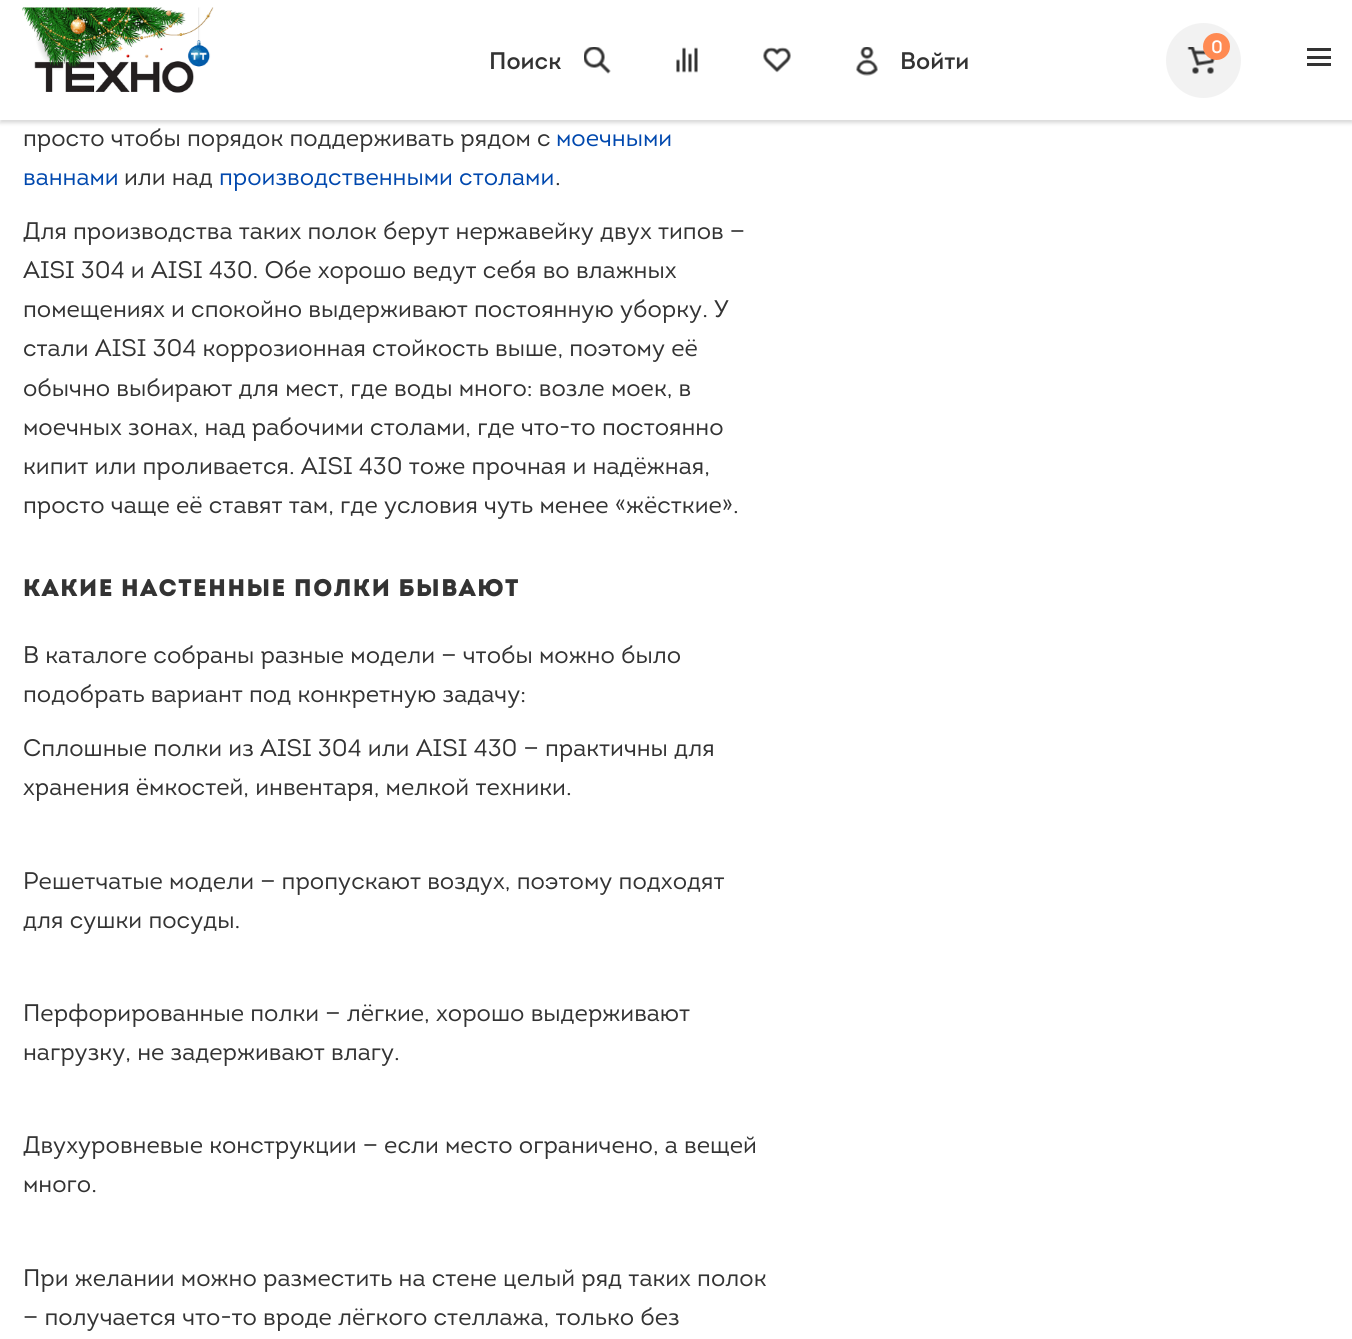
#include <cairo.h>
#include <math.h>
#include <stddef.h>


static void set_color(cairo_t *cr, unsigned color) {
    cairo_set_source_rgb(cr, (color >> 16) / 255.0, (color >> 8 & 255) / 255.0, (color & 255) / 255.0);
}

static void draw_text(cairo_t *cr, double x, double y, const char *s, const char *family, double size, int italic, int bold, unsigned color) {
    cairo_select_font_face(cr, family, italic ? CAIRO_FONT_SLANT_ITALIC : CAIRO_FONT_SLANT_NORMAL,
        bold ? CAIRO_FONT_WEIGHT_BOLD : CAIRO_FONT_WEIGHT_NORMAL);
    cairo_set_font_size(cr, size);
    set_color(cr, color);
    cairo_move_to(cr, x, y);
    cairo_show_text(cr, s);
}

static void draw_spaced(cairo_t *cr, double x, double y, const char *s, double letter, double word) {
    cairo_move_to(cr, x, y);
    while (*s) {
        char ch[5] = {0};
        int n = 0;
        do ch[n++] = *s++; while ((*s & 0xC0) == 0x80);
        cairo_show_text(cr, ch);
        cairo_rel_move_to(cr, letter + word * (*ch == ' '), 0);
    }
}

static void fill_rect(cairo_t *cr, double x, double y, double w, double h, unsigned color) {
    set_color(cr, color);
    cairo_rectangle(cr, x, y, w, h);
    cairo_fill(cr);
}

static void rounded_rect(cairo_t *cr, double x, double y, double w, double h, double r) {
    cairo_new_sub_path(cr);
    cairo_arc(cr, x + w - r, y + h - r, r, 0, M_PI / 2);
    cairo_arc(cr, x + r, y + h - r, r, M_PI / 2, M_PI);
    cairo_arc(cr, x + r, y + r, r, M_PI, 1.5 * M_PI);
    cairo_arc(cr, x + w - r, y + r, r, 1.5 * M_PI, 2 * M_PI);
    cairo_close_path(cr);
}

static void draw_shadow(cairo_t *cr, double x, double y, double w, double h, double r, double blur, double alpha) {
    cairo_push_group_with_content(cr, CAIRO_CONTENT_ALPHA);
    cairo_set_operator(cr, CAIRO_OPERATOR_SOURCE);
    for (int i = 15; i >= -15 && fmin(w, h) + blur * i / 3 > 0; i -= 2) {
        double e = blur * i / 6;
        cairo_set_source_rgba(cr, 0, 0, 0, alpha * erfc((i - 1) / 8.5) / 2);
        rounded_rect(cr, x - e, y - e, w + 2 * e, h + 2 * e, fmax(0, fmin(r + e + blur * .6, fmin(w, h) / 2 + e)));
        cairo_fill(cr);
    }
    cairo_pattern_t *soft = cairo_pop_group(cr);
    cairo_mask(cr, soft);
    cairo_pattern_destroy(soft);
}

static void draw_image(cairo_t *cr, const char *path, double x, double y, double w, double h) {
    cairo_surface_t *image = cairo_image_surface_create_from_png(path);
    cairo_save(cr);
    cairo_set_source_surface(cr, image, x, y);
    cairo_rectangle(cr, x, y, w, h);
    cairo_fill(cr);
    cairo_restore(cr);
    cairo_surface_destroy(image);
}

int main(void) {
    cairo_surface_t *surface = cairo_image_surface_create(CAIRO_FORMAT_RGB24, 1352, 1339);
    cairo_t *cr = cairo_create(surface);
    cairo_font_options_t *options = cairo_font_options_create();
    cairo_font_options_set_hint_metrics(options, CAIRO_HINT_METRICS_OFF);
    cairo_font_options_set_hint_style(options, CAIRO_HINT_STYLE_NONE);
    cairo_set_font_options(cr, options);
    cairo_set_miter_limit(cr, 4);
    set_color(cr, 0xFFFFFF);
    cairo_paint(cr);
    set_color(cr, 0x000000);
    draw_shadow(cr, 0, 3, 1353, 120, 0, 2, 0.15);
    fill_rect(cr, 0, 0, 1352, 120, 0xFFFFFF);
    draw_image(cr, "assets/img1.png", 22, 7, 192, 86);
    set_color(cr, 0xF2F2F2);
    cairo_arc(cr, 1203.5, 60.5, 36, 0, 2 * M_PI);
    cairo_fill_preserve(cr);
    cairo_set_line_width(cr, 3);
    cairo_stroke(cr);
    draw_image(cr, "assets/img2.png", 1187, 47, 28, 27);
    set_color(cr, 0xFF8A52);
    cairo_arc(cr, 1216.5, 46.5, 13.5, 0, 2 * M_PI);
    cairo_fill(cr);
    draw_text(cr, 1211, 53, "0", "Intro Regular", 18, 0, 0, 0xFFFFFF);
    draw_text(cr, 489, 69, "Поиск", "Intro Regular", 24, 0, 0, 0x333333);
    draw_image(cr, "assets/img3.png", 584, 47, 27, 27);
    draw_image(cr, "assets/img4.png", 676, 47, 22, 26);
    draw_image(cr, "assets/img5.png", 763, 47, 28, 26);
    draw_image(cr, "assets/img6.png", 856, 47, 22, 29);
    draw_text(cr, 900, 69, "Войти", "Intro Regular", 24, 0, 0, 0x333333);
    fill_rect(cr, 1307, 56, 24, 3, 0x333333);
    fill_rect(cr, 1307, 48, 24, 3, 0x333333);
    fill_rect(cr, 1307, 63, 24, 3, 0x333333);
    draw_text(cr, 23, 146, "просто чтобы порядок поддерживать рядом с", "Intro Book", 24, 0, 0, 0x333333);
    draw_text(cr, 556, 146, "моечными", "Intro Book", 24, 0, 0, 0x0048AE);
    draw_text(cr, 23, 185, "ваннами", "Intro Book", 24, 0, 0, 0x0048AE);
    draw_text(cr, 124, 185, "или над", "Intro Book", 24, 0, 0, 0x333333);
    draw_text(cr, 219, 185, "производственными столами", "Intro Book", 24, 0, 0, 0x0048AE);
    draw_text(cr, 555, 185, ".", "Intro Book", 24, 0, 0, 0x333333);
    draw_text(cr, 23, 239, "Для производства таких полок берут нержавейку двух типов —", "Intro Book", 24, 0, 0, 0x333333);
    draw_text(cr, 23, 278, "AISI 304 и AISI 430. Обе хорошо ведут себя во влажных", "Intro Book", 24, 0, 0, 0x333333);
    draw_text(cr, 23, 317, "помещениях и спокойно выдерживают постоянную уборку. У", "Intro Book", 24, 0, 0, 0x333333);
    draw_text(cr, 23, 356, "стали AISI 304 коррозионная стойкость выше, поэтому её", "Intro Book", 24, 0, 0, 0x333333);
    draw_text(cr, 23, 396, "обычно выбирают для мест, где воды много: возле моек, в", "Intro Book", 24, 0, 0, 0x333333);
    draw_text(cr, 23, 435, "моечных зонах, над рабочими столами, где что-то постоянно", "Intro Book", 24, 0, 0, 0x333333);
    draw_text(cr, 23, 474, "кипит или проливается. AISI 430 тоже прочная и надёжная,", "Intro Book", 24, 0, 0, 0x333333);
    draw_text(cr, 23, 513, "просто чаще её ставят там, где условия чуть менее «жёсткие».", "Intro Book", 24, 0, 0, 0x333333);
    cairo_select_font_face(cr, "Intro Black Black", CAIRO_FONT_SLANT_NORMAL, CAIRO_FONT_WEIGHT_NORMAL);
    draw_spaced(cr, 23, 596, "КАКИЕ НАСТЕННЫЕ ПОЛКИ БЫВАЮТ", 1.5, 0);
    draw_text(cr, 23, 663, "В каталоге собраны разные модели — чтобы можно было", "Intro Book", 24, 0, 0, 0x333333);
    draw_text(cr, 23, 702, "подобрать вариант под конкретную задачу:", "Intro Book", 24, 0, 0, 0x333333);
    draw_text(cr, 23, 756, "Сплошные полки из AISI 304 или AISI 430 — практичны для", "Intro Book", 24, 0, 0, 0x333333);
    draw_text(cr, 23, 795, "хранения ёмкостей, инвентаря, мелкой техники.", "Intro Book", 24, 0, 0, 0x333333);
    draw_text(cr, 23, 889, "Решетчатые модели — пропускают воздух, поэтому подходят", "Intro Book", 24, 0, 0, 0x333333);
    draw_text(cr, 23, 928, "для сушки посуды.", "Intro Book", 24, 0, 0, 0x333333);
    draw_text(cr, 23, 1021, "Перфорированные полки — лёгкие, хорошо выдерживают", "Intro Book", 24, 0, 0, 0x333333);
    draw_text(cr, 23, 1060, "нагрузку, не задерживают влагу.", "Intro Book", 24, 0, 0, 0x333333);
    draw_text(cr, 23, 1153, "Двухуровневые конструкции — если место ограничено, а вещей", "Intro Book", 24, 0, 0, 0x333333);
    draw_text(cr, 23, 1192, "много.", "Intro Book", 24, 0, 0, 0x333333);
    draw_text(cr, 23, 1286, "При желании можно разместить на стене целый ряд таких полок", "Intro Book", 24, 0, 0, 0x333333);
    draw_text(cr, 23, 1325, "— получается что-то вроде лёгкого стеллажа, только без", "Intro Book", 24, 0, 0, 0x333333);
    cairo_surface_write_to_png(surface, "output.png");
    cairo_font_options_destroy(options);
    cairo_destroy(cr);
    cairo_surface_destroy(surface);
    return 0;
}
